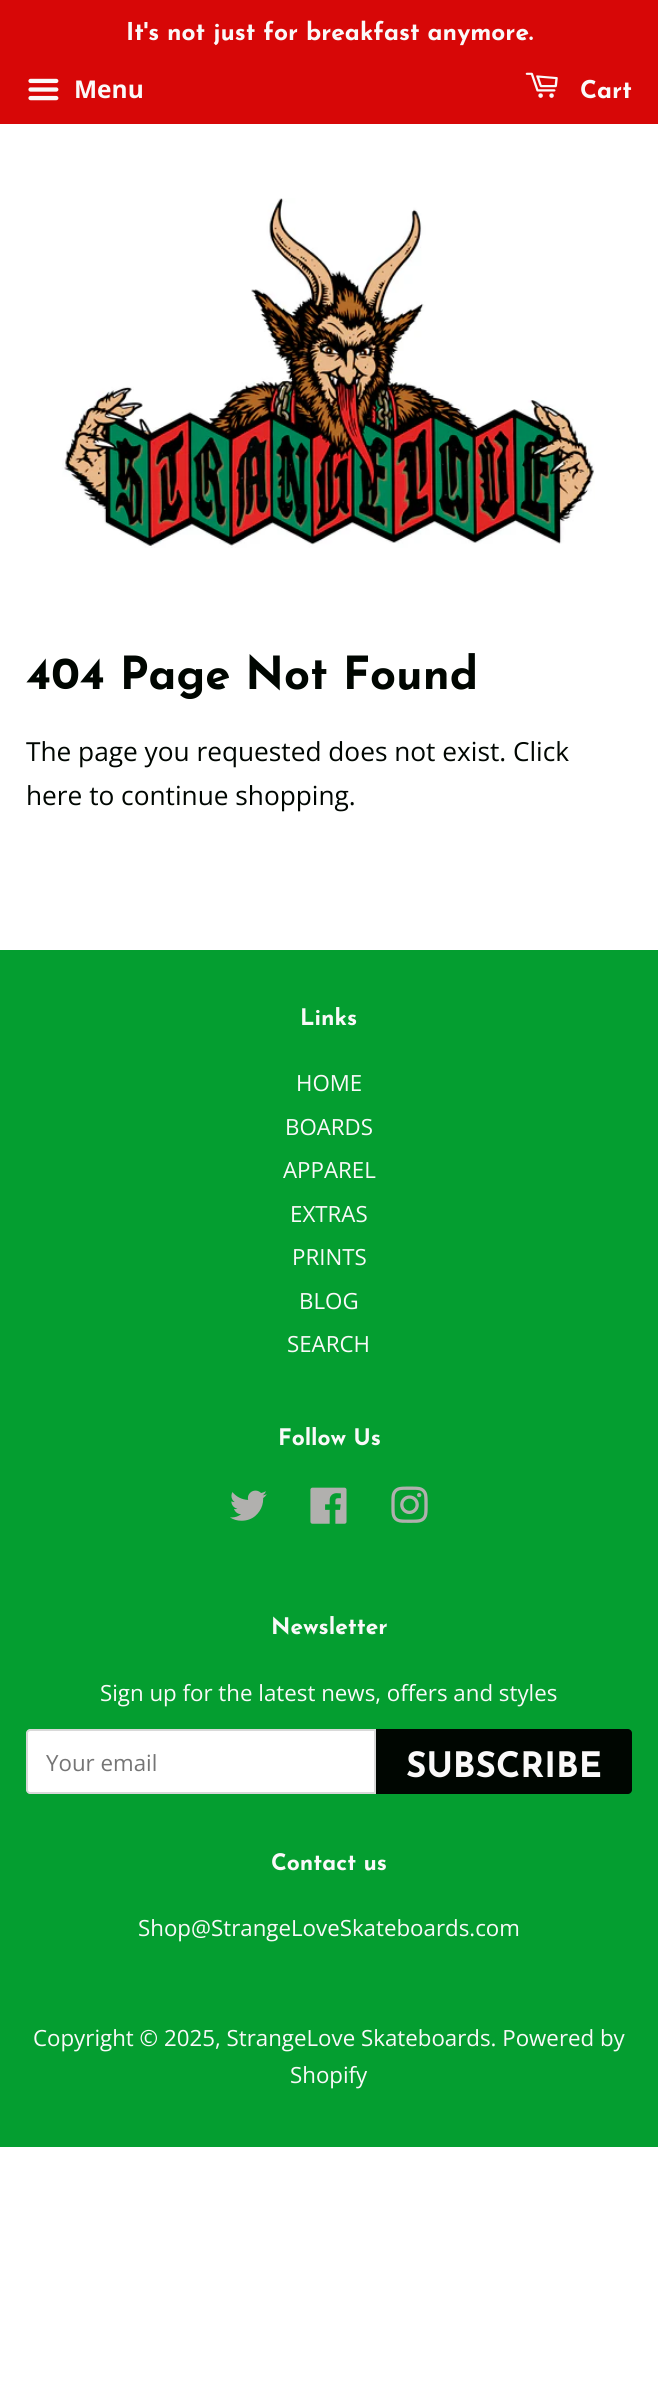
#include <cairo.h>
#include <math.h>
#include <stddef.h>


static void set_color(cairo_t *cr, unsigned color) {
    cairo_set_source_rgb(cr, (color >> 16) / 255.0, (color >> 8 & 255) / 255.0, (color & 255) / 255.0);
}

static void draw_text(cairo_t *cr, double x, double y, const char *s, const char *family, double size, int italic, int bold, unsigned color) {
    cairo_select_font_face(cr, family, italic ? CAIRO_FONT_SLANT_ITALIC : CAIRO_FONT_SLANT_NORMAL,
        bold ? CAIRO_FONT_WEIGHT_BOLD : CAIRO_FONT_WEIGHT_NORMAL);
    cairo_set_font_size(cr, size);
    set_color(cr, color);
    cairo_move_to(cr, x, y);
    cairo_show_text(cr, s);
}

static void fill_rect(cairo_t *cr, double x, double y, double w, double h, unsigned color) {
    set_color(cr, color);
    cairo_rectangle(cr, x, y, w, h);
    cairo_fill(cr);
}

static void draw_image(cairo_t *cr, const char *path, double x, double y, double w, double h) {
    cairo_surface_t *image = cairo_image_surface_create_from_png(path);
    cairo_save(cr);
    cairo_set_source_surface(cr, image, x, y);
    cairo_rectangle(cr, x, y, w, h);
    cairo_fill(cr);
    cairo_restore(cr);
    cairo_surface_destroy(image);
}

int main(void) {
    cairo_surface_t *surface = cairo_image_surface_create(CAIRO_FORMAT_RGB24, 658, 2405);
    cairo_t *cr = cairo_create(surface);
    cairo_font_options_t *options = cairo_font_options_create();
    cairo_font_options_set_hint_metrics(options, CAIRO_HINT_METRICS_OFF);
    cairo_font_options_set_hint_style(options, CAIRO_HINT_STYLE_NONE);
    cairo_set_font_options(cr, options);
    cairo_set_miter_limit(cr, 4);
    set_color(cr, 0xFFFFFF);
    cairo_paint(cr);
    fill_rect(cr, 0, 0, 658, 124, 0xD70707);
    draw_text(cr, 126, 40, "It's not just for breakfast anymore.", "Josefin Sans Thin", 24.5, 0, 0, 0xFAF9F9);
    draw_image(cr, "assets/img1.png", 28, 78, 31, 23);
    draw_text(cr, 74, 98, "Menu", "Open Sans", 24.5, 0, 1, 0xFAF9F9);
    draw_image(cr, "assets/img2.png", 525, 72, 33, 26);
    draw_text(cr, 580, 98, "Cart", "Josefin Sans Thin", 24.5, 0, 0, 0xFAF9F9);
    draw_image(cr, "assets/img3.png", 62, 198, 533, 350);
    draw_text(cr, 26, 689, "404 Page Not Found", "Josefin Sans Thin", 45.5, 0, 0, 0x000601);
    draw_text(cr, 26, 761, "The page you requested does not exist. Click", "Open Sans", 26.25, 0, 0, 0x000601);
    draw_text(cr, 26, 805, "here to continue shopping.", "Open Sans", 26.25, 0, 0, 0x000601);
    fill_rect(cr, 0, 950, 658, 1197, 0x049E30);
    draw_text(cr, 300, 1025, "Links", "Josefin Sans Thin", 22.75, 0, 0, 0xFAF9F9);
    draw_text(cr, 296, 1091, "HOME", "Open Sans", 22.3, 0, 0, 0xFAF9F9);
    draw_text(cr, 285, 1135, "BOARDS", "Open Sans", 22.3, 0, 0, 0xFAF9F9);
    draw_text(cr, 283, 1178, "APPAREL", "Open Sans", 22.3, 0, 0, 0xFAF9F9);
    draw_text(cr, 290, 1222, "EXTRAS", "Open Sans", 22.3, 0, 0, 0xFAF9F9);
    draw_text(cr, 292, 1265, "PRINTS", "Open Sans", 22.3, 0, 0, 0xFAF9F9);
    draw_text(cr, 299, 1309, "BLOG", "Open Sans", 22.3, 0, 0, 0xFAF9F9);
    draw_text(cr, 287, 1352, "SEARCH", "Open Sans", 22.3, 0, 0, 0xFAF9F9);
    draw_text(cr, 278, 1445, "Follow Us", "Josefin Sans Thin", 22.75, 0, 0, 0xFAF9F9);
    draw_image(cr, "assets/img4.png", 230, 1490, 37, 31);
    draw_image(cr, "assets/img5.png", 310, 1487, 37, 37);
    draw_image(cr, "assets/img6.png", 391, 1486, 37, 37);
    draw_text(cr, 271, 1634, "Newsletter", "Josefin Sans Thin", 22.75, 0, 0, 0xFAF9F9);
    draw_text(cr, 100, 1701, "Sign up for the latest news, offers and styles", "Open Sans", 22.3, 0, 0, 0xFAF9F9);
    set_color(cr, 0xFFFFFF);
    cairo_new_path(cr);
    cairo_move_to(cr, 30, 1729);
    cairo_line_to(cr, 376, 1729);
    cairo_line_to(cr, 376, 1794);
    cairo_line_to(cr, 30, 1794);
    cairo_curve_to(cr, 28, 1794, 26, 1792, 26, 1790);
    cairo_line_to(cr, 26, 1733);
    cairo_curve_to(cr, 26, 1731, 28, 1729, 30, 1729);
    cairo_close_path(cr);
    cairo_fill(cr);
    cairo_new_path(cr);
    cairo_move_to(cr, 30, 1730);
    cairo_line_to(cr, 375, 1730);
    cairo_line_to(cr, 375, 1793);
    cairo_line_to(cr, 30, 1793);
    cairo_curve_to(cr, 28.5, 1793, 27, 1791.5, 27, 1790);
    cairo_line_to(cr, 27, 1733);
    cairo_curve_to(cr, 27, 1731.5, 28.5, 1730, 30, 1730);
    cairo_close_path(cr);
    cairo_set_source_rgba(cr, 0, 0.024, 0.004, 0.15);
    cairo_stroke(cr);
    draw_text(cr, 46, 1771, "Your email", "Open Sans", 22.3, 0, 0, 0x757575);
    set_color(cr, 0x000601);
    cairo_new_path(cr);
    cairo_move_to(cr, 376, 1729);
    cairo_line_to(cr, 628, 1729);
    cairo_curve_to(cr, 630, 1729, 632, 1731, 632, 1733);
    cairo_line_to(cr, 632, 1790);
    cairo_curve_to(cr, 632, 1792, 630, 1794, 628, 1794);
    cairo_line_to(cr, 376, 1794);
    cairo_close_path(cr);
    cairo_fill(cr);
    draw_text(cr, 406, 1777, "SUBSCRIBE", "Josefin Sans Thin", 35, 0, 0, 0xFAF9F9);
    draw_text(cr, 271, 1870, "Contact us", "Josefin Sans Thin", 22.75, 0, 0, 0xFAF9F9);
    draw_text(cr, 138, 1936, "Shop@StrangeLoveSkateboards.com", "Open Sans", 22.3, 0, 0, 0xFAF9F9);
    draw_text(cr, 33, 2046, "Copyright © 2025, StrangeLove Skateboards. Powered by", "Open Sans", 22.3, 0, 0, 0xFAF9F9);
    draw_text(cr, 290, 2083, "Shopify", "Open Sans", 22.3, 0, 0, 0xFAF9F9);
    cairo_surface_write_to_png(surface, "output.png");
    cairo_font_options_destroy(options);
    cairo_destroy(cr);
    cairo_surface_destroy(surface);
    return 0;
}
